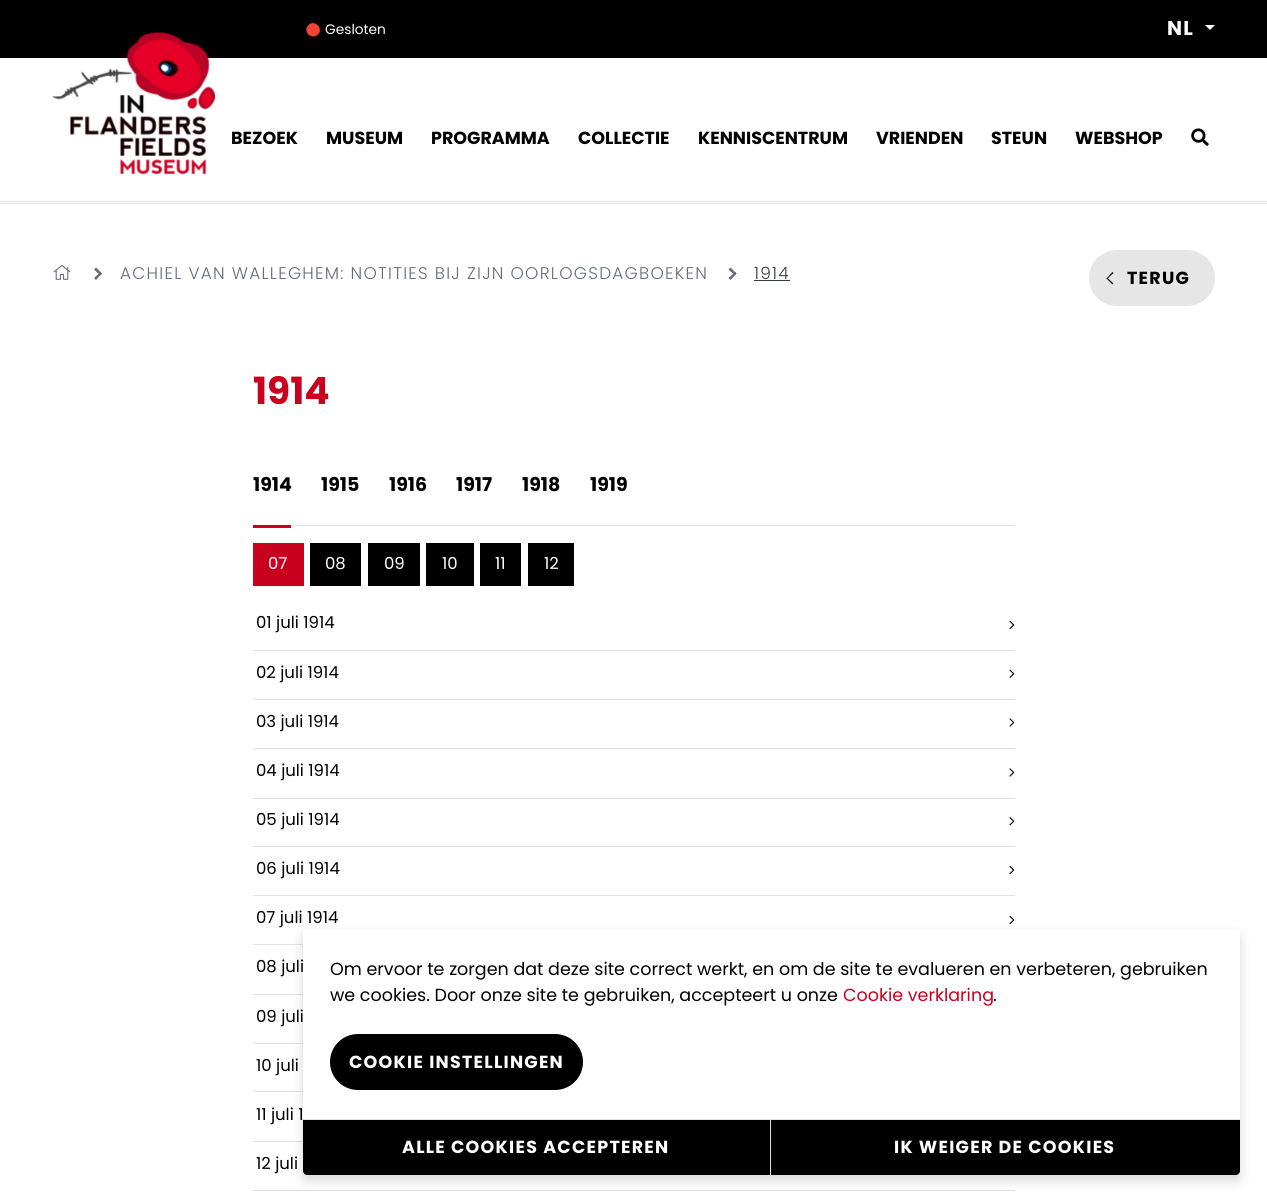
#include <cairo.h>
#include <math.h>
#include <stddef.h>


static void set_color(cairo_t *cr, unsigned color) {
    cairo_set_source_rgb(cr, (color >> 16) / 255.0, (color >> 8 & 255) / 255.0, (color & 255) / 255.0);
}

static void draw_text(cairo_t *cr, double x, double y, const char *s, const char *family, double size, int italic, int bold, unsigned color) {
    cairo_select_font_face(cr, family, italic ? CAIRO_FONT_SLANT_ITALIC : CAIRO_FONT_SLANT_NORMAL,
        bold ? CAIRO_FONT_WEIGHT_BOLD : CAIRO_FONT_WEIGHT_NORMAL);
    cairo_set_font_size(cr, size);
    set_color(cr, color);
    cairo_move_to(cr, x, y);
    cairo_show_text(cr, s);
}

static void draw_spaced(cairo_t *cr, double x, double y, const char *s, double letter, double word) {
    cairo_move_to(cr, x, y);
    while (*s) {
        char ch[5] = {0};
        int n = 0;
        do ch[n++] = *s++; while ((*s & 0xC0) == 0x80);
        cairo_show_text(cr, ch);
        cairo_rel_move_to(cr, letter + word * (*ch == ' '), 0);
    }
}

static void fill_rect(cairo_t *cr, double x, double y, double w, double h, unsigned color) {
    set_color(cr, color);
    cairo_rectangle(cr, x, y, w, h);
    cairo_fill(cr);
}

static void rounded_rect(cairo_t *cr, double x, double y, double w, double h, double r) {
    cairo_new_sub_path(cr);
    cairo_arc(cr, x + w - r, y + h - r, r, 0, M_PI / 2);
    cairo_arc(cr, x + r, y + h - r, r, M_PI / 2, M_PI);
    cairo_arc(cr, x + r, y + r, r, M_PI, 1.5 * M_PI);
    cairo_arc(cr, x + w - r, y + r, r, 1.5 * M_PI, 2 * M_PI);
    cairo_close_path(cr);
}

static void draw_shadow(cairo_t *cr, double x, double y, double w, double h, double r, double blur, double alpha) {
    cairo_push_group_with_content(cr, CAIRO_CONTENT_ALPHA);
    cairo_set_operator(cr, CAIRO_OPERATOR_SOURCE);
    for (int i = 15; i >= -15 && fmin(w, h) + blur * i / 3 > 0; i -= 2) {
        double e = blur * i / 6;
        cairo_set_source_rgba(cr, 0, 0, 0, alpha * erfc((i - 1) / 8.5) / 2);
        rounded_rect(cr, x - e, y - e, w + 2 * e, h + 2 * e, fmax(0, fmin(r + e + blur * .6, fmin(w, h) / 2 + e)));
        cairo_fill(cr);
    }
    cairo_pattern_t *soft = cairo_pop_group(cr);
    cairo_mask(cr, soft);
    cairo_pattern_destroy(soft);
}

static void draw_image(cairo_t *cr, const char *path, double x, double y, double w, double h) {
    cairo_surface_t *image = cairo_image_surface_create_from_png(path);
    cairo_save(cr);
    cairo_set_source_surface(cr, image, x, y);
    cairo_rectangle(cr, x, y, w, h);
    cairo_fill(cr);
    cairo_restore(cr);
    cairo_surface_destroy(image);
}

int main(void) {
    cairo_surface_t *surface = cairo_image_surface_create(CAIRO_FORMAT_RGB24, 1267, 1202);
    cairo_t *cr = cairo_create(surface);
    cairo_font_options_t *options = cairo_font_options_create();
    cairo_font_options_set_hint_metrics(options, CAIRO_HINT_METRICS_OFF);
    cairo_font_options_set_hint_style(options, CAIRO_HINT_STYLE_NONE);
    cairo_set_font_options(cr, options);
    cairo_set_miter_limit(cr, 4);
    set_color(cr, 0xFFFFFF);
    cairo_paint(cr);
    fill_rect(cr, 0, 0, 1267, 58, 0x000000);
    set_color(cr, 0xF44336);
    cairo_new_path(cr);
    cairo_move_to(cr, 308.5, 25);
    cairo_curve_to(cr, 314.5, 19, 324, 28.5, 318, 34.5);
    cairo_curve_to(cr, 311.5, 40.5, 302, 31.5, 308.5, 25);
    cairo_close_path(cr);
    cairo_fill(cr);
    draw_text(cr, 325, 34, "Gesloten", "Poppins", 13.75, 0, 0, 0xFFFFFF);
    cairo_select_font_face(cr, "Poppins", CAIRO_FONT_SLANT_NORMAL, CAIRO_FONT_WEIGHT_BOLD);
    cairo_set_font_size(cr, 20);
    draw_spaced(cr, 1167, 35, "NL", 1.25, 0);
    cairo_new_path(cr);
    cairo_move_to(cr, 1205, 25);
    cairo_line_to(cr, 1215, 25);
    cairo_line_to(cr, 1210, 30);
    cairo_close_path(cr);
    cairo_fill(cr);
    fill_rect(cr, 0, 201, 1267, 1, 0xDEE2E6);
    draw_image(cr, "assets/img1.png", 52, 32, 163, 142);
    draw_text(cr, 231, 144, "BEZOEK", "Poppins", 17.5, 0, 1, 0x000000);
    draw_text(cr, 326, 144, "MUSEUM", "Poppins", 17.5, 0, 1, 0x000000);
    draw_text(cr, 431, 144, "PROGRAMMA", "Poppins", 17.5, 0, 1, 0x000000);
    draw_text(cr, 578, 144, "COLLECTIE", "Poppins", 17.5, 0, 1, 0x000000);
    draw_text(cr, 698, 144, "KENNISCENTRUM", "Poppins", 17.5, 0, 1, 0x000000);
    draw_text(cr, 876, 144, "VRIENDEN", "Poppins", 17.5, 0, 1, 0x000000);
    draw_text(cr, 991, 144, "STEUN", "Poppins", 17.5, 0, 1, 0x000000);
    draw_text(cr, 1075, 144, "WEBSHOP", "Poppins", 17.5, 0, 1, 0x000000);
    draw_image(cr, "assets/img2.png", 1191, 128, 18, 18);
    fill_rect(cr, 0, 203, 1267, 1, 0xDEE2E6);
    draw_image(cr, "assets/img3.png", 53, 265, 18, 15);
    set_color(cr, 0x626D78);
    cairo_new_path(cr);
    cairo_move_to(cr, 94, 269.5);
    cairo_line_to(cr, 96, 267.5);
    cairo_line_to(cr, 102, 273.5);
    cairo_line_to(cr, 100.5, 275.5);
    cairo_close_path(cr);
    cairo_fill(cr);
    cairo_new_path(cr);
    cairo_move_to(cr, 94, 278);
    cairo_line_to(cr, 100.5, 272);
    cairo_line_to(cr, 102, 273.5);
    cairo_line_to(cr, 96, 280);
    cairo_close_path(cr);
    cairo_fill(cr);
    cairo_select_font_face(cr, "Poppins Light", CAIRO_FONT_SLANT_NORMAL, CAIRO_FONT_WEIGHT_NORMAL);
    cairo_set_font_size(cr, 16.9);
    draw_spaced(cr, 120, 279, "ACHIEL VAN WALLEGHEM: NOTITIES BIJ ZIJN OORLOGSDAGBOEKEN", 1.25, 0);
    cairo_new_path(cr);
    cairo_move_to(cr, 728.5, 269.5);
    cairo_line_to(cr, 730.5, 267.5);
    cairo_line_to(cr, 736.5, 273.5);
    cairo_line_to(cr, 735, 275.5);
    cairo_close_path(cr);
    cairo_fill(cr);
    cairo_new_path(cr);
    cairo_move_to(cr, 728.5, 278);
    cairo_line_to(cr, 735, 272);
    cairo_line_to(cr, 736.5, 273.5);
    cairo_line_to(cr, 730.5, 280);
    cairo_close_path(cr);
    cairo_fill(cr);
    set_color(cr, 0x343A40);
    draw_spaced(cr, 754, 279, "1914", 1.25, 0);
    fill_rect(cr, 754, 280, 36, 1, 0x343A40);
    set_color(cr, 0xE6E6E6);
    rounded_rect(cr, 1089, 250, 126, 56, 28);
    cairo_fill(cr);
    set_color(cr, 0x000000);
    cairo_new_path(cr);
    cairo_move_to(cr, 1113.5, 283.5);
    cairo_line_to(cr, 1112.5, 284.5);
    cairo_line_to(cr, 1106.5, 278.5);
    cairo_line_to(cr, 1107, 277.5);
    cairo_close_path(cr);
    cairo_fill(cr);
    cairo_new_path(cr);
    cairo_move_to(cr, 1113.5, 273);
    cairo_line_to(cr, 1107, 279);
    cairo_line_to(cr, 1106.5, 278.5);
    cairo_line_to(cr, 1112.5, 272);
    cairo_close_path(cr);
    cairo_fill(cr);
    cairo_select_font_face(cr, "Poppins", CAIRO_FONT_SLANT_NORMAL, CAIRO_FONT_WEIGHT_BOLD);
    cairo_set_font_size(cr, 17.5);
    draw_spaced(cr, 1127, 284, "TERUG", 1.25, 0);
    draw_text(cr, 253, 404, "1914", "Poppins", 37.5, 0, 1, 0xC8011F);
    fill_rect(cr, 291, 525, 724, 1, 0xDEE2E6);
    draw_text(cr, 253, 491, "1914", "Poppins", 19, 0, 1, 0x000000);
    fill_rect(cr, 253, 525, 38, 3, 0xC8011F);
    draw_text(cr, 321, 491, "1915", "Poppins", 19, 0, 1, 0x000000);
    draw_text(cr, 389, 491, "1916", "Poppins", 19, 0, 1, 0x000000);
    draw_text(cr, 456, 491, "1917", "Poppins", 19, 0, 1, 0x000000);
    draw_text(cr, 522, 491, "1918", "Poppins", 19, 0, 1, 0x000000);
    draw_text(cr, 590, 491, "1919", "Poppins", 19, 0, 1, 0x000000);
    fill_rect(cr, 253, 543, 51, 43, 0xC8011F);
    draw_text(cr, 268, 569, "07", "Poppins", 16.5, 0, 0, 0xFFFFFF);
    fill_rect(cr, 310, 543, 51, 43, 0x000000);
    draw_text(cr, 325, 569, "08", "Poppins", 16.5, 0, 0, 0xFFFFFF);
    fill_rect(cr, 368, 543, 52, 43, 0x000000);
    draw_text(cr, 384, 569, "09", "Poppins", 16.5, 0, 0, 0xFFFFFF);
    fill_rect(cr, 426, 543, 48, 43, 0x000000);
    draw_text(cr, 442, 569, "10", "Poppins", 16.5, 0, 0, 0xFFFFFF);
    fill_rect(cr, 480, 543, 41, 43, 0x000000);
    draw_text(cr, 495, 569, "11", "Poppins", 16.5, 0, 0, 0xFFFFFF);
    fill_rect(cr, 528, 543, 46, 43, 0x000000);
    draw_text(cr, 544, 569, "12", "Poppins", 16.5, 0, 0, 0xFFFFFF);
    fill_rect(cr, 253, 650, 762, 1, 0xDEE2E6);
    draw_text(cr, 256, 628, "01 juli 1914", "Poppins", 16.5, 0, 0, 0x000000);
    draw_image(cr, "assets/img4.png", 1009, 620, 6, 10);
    fill_rect(cr, 253, 699, 762, 1, 0xDEE2E6);
    draw_text(cr, 256, 678, "02 juli 1914", "Poppins", 16.5, 0, 0, 0x000000);
    draw_image(cr, "assets/img5.png", 1009, 669, 6, 9);
    fill_rect(cr, 253, 748, 762, 1, 0xDEE2E6);
    draw_text(cr, 256, 727, "03 juli 1914", "Poppins", 16.5, 0, 0, 0x000000);
    draw_image(cr, "assets/img6.png", 1009, 718, 6, 9);
    fill_rect(cr, 253, 798, 762, 1, 0xDEE2E6);
    draw_text(cr, 256, 776, "04 juli 1914", "Poppins", 16.5, 0, 0, 0x000000);
    draw_image(cr, "assets/img6.png", 1009, 768, 6, 9);
    fill_rect(cr, 253, 846, 762, 1, 0xDEE2E6);
    draw_text(cr, 256, 825, "05 juli 1914", "Poppins", 16.5, 0, 0, 0x000000);
    draw_image(cr, "assets/img7.png", 1009, 817, 6, 9);
    fill_rect(cr, 253, 895, 762, 1, 0xDEE2E6);
    draw_text(cr, 256, 874, "06 juli 1914", "Poppins", 16.5, 0, 0, 0x000000);
    draw_image(cr, "assets/img4.png", 1009, 865, 6, 10);
    fill_rect(cr, 253, 944, 50, 1, 0xDEE2E6);
    draw_text(cr, 256, 923, "07 juli 1914", "Poppins", 16.5, 0, 0, 0x000000);
    draw_image(cr, "assets/img4.png", 1009, 915, 6, 10);
    fill_rect(cr, 253, 994, 50, 1, 0xDEE2E6);
    draw_text(cr, 256, 972, "08 juli", "Poppins", 16.5, 0, 0, 0x000000);
    fill_rect(cr, 253, 1043, 50, 1, 0xDEE2E6);
    draw_text(cr, 256, 1022, "09 juli", "Poppins", 16.5, 0, 0, 0x000000);
    fill_rect(cr, 253, 1091, 50, 1, 0xDEE2E6);
    draw_text(cr, 256, 1071, "10 juli", "Poppins", 16.5, 0, 0, 0x000000);
    fill_rect(cr, 253, 1141, 50, 1, 0xDEE2E6);
    draw_text(cr, 256, 1120, "11 juli 1", "Poppins", 16.5, 0, 0, 0x000000);
    fill_rect(cr, 253, 1190, 762, 1, 0xDEE2E6);
    draw_text(cr, 256, 1169, "12 juli", "Poppins", 16.5, 0, 0, 0x000000);
    set_color(cr, 0x000000);
    draw_shadow(cr, 303, 935, 937, 246, 4, 6, 0.15);
    set_color(cr, 0xFFFFFF);
    rounded_rect(cr, 303, 929, 937, 246, 4);
    cairo_fill(cr);
    draw_text(cr, 330, 975, "Om ervoor te zorgen dat deze site correct werkt, en om de site te evalueren en verbeteren, gebruiken", "Poppins", 17.5, 0, 0, 0x000000);
    draw_text(cr, 330, 1001, "we cookies. Door onze site te gebruiken, accepteert u onze", "Poppins", 17.5, 0, 0, 0x000000);
    draw_text(cr, 843, 1001, "Cookie verklaring", "Poppins", 17.5, 0, 0, 0xC8011F);
    draw_text(cr, 993, 1001, ".", "Poppins", 17.5, 0, 0, 0x000000);
    rounded_rect(cr, 330, 1034, 253, 56, 28);
    cairo_fill(cr);
    cairo_select_font_face(cr, "Poppins", CAIRO_FONT_SLANT_NORMAL, CAIRO_FONT_WEIGHT_BOLD);
    set_color(cr, 0xFFFFFF);
    draw_spaced(cr, 349, 1068, "COOKIE INSTELLINGEN", 1.25, 0);
    set_color(cr, 0x000000);
    cairo_new_path(cr);
    cairo_move_to(cr, 303, 1119);
    cairo_line_to(cr, 771, 1119);
    cairo_line_to(cr, 771, 1175);
    cairo_line_to(cr, 307, 1175);
    cairo_curve_to(cr, 305, 1175, 303, 1173, 303, 1171);
    cairo_close_path(cr);
    cairo_fill(cr);
    fill_rect(cr, 303, 1119, 468, 1, 0xDEE2E6);
    fill_rect(cr, 770, 1119, 1, 56, 0xDEE2E6);
    set_color(cr, 0xFFFFFF);
    draw_spaced(cr, 402, 1153, "ALLE COOKIES ACCEPTEREN", 1.25, 0);
    set_color(cr, 0x000000);
    cairo_new_path(cr);
    cairo_move_to(cr, 771, 1119);
    cairo_line_to(cr, 1240, 1119);
    cairo_line_to(cr, 1240, 1171);
    cairo_curve_to(cr, 1240, 1173, 1238, 1175, 1236, 1175);
    cairo_line_to(cr, 771, 1175);
    cairo_close_path(cr);
    cairo_fill(cr);
    fill_rect(cr, 771, 1119, 469, 1, 0xDEE2E6);
    set_color(cr, 0xFFFFFF);
    draw_spaced(cr, 894, 1153, "IK WEIGER DE COOKIES", 1.25, 0);
    cairo_surface_write_to_png(surface, "output.png");
    cairo_font_options_destroy(options);
    cairo_destroy(cr);
    cairo_surface_destroy(surface);
    return 0;
}
